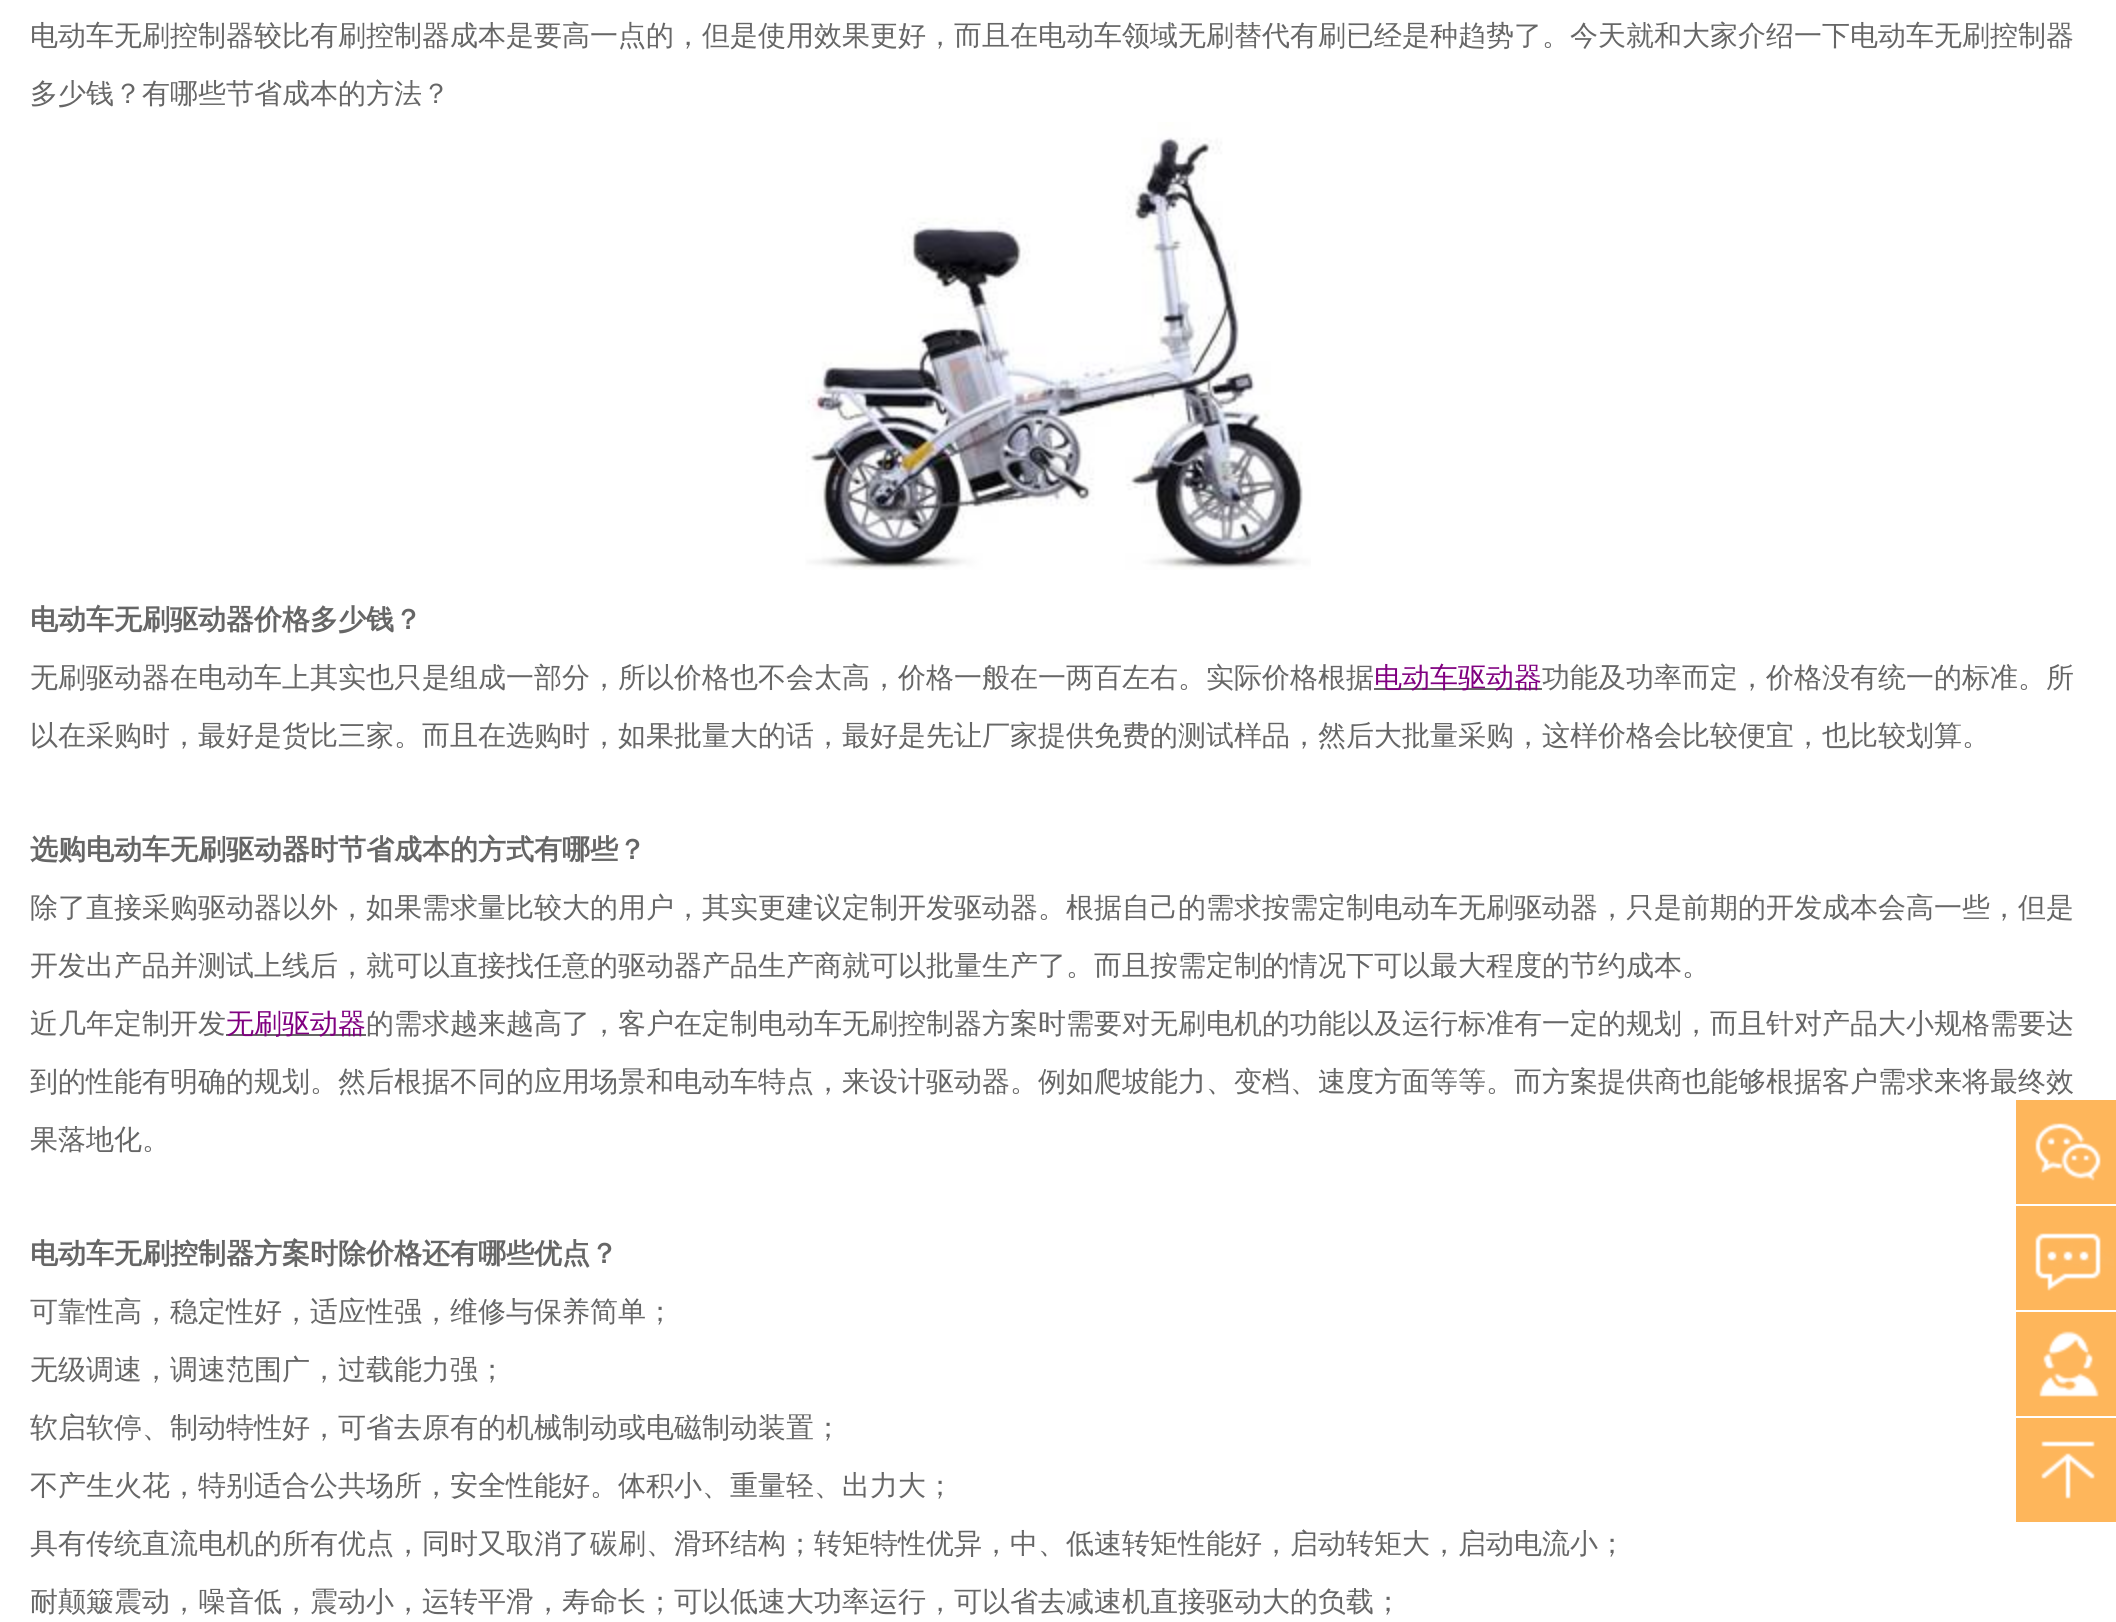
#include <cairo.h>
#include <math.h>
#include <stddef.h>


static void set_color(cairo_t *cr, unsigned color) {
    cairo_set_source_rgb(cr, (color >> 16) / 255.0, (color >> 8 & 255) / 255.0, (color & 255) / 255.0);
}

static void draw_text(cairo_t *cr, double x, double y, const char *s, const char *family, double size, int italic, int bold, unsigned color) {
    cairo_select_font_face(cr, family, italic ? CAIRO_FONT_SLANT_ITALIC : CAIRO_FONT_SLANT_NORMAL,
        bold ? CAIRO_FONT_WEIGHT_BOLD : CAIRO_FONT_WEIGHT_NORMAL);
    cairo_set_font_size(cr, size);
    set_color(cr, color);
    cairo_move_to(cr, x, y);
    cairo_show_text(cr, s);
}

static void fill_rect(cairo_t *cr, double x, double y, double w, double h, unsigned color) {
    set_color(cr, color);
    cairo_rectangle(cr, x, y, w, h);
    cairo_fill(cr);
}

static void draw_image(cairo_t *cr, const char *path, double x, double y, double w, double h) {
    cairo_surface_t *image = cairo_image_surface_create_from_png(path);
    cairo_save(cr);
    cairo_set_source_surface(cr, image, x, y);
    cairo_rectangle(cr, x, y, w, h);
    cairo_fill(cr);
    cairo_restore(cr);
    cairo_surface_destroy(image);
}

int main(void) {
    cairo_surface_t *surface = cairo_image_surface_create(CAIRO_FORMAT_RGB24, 2116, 1622);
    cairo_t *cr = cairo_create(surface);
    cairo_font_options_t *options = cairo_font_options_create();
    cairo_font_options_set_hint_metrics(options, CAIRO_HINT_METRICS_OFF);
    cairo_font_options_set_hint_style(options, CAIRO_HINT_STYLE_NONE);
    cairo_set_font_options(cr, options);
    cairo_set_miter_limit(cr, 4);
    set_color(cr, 0xFFFFFF);
    cairo_paint(cr);
    draw_text(cr, 30, 45, "电动车无刷控制器较比有刷控制器成本是要高一点的，但是使用效果更好，而且在电动车领域无刷替代有刷已经是种趋势了。今天就和大家介绍一下电动车无刷控制器", "WenQuanYi Zen Hei Medium", 28, 0, 0, 0x666666);
    draw_text(cr, 30, 103, "多少钱？有哪些节省成本的方法？", "WenQuanYi Zen Hei Medium", 28, 0, 0, 0x666666);
    draw_image(cr, "assets/img1.png", 805, 122, 506, 448);
    draw_text(cr, 30, 629, "电动车无刷驱动器价格多少钱？", "WenQuanYi Zen Hei", 28, 0, 1, 0x666666);
    draw_text(cr, 30, 687, "无刷驱动器在电动车上其实也只是组成一部分，所以价格也不会太高，价格一般在一两百左右。实际价格根据", "WenQuanYi Zen Hei Medium", 28, 0, 0, 0x666666);
    fill_rect(cr, 1374, 688, 168, 2, 0x666666);
    draw_text(cr, 1374, 687, "电动车驱动器", "WenQuanYi Zen Hei Medium", 28, 0, 0, 0x800080);
    draw_text(cr, 1542, 687, "功能及功率而定，价格没有统一的标准。所", "WenQuanYi Zen Hei Medium", 28, 0, 0, 0x666666);
    draw_text(cr, 30, 745, "以在采购时，最好是货比三家。而且在选购时，如果批量大的话，最好是先让厂家提供免费的测试样品，然后大批量采购，这样价格会比较便宜，也比较划算。", "WenQuanYi Zen Hei Medium", 28, 0, 0, 0x666666);
    draw_text(cr, 30, 859, "选购电动车无刷驱动器时节省成本的方式有哪些？", "WenQuanYi Zen Hei", 28, 0, 1, 0x666666);
    draw_text(cr, 30, 917, "除了直接采购驱动器以外，如果需求量比较大的用户，其实更建议定制开发驱动器。根据自己的需求按需定制电动车无刷驱动器，只是前期的开发成本会高一些，但是", "WenQuanYi Zen Hei Medium", 28, 0, 0, 0x666666);
    draw_text(cr, 30, 975, "开发出产品并测试上线后，就可以直接找任意的驱动器产品生产商就可以批量生产了。而且按需定制的情况下可以最大程度的节约成本。", "WenQuanYi Zen Hei Medium", 28, 0, 0, 0x666666);
    draw_text(cr, 30, 1033, "近几年定制开发", "WenQuanYi Zen Hei Medium", 28, 0, 0, 0x666666);
    fill_rect(cr, 226, 1034, 140, 2, 0x666666);
    draw_text(cr, 226, 1033, "无刷驱动器", "WenQuanYi Zen Hei Medium", 28, 0, 0, 0x800080);
    draw_text(cr, 366, 1033, "的需求越来越高了，客户在定制电动车无刷控制器方案时需要对无刷电机的功能以及运行标准有一定的规划，而且针对产品大小规格需要达", "WenQuanYi Zen Hei Medium", 28, 0, 0, 0x666666);
    draw_text(cr, 30, 1091, "到的性能有明确的规划。然后根据不同的应用场景和电动车特点，来设计驱动器。例如爬坡能力、变档、速度方面等等。而方案提供商也能够根据客户需求来将最终效", "WenQuanYi Zen Hei Medium", 28, 0, 0, 0x666666);
    draw_text(cr, 30, 1149, "果落地化。", "WenQuanYi Zen Hei Medium", 28, 0, 0, 0x666666);
    draw_text(cr, 30, 1263, "电动车无刷控制器方案时除价格还有哪些优点？", "WenQuanYi Zen Hei", 28, 0, 1, 0x666666);
    draw_text(cr, 30, 1321, "可靠性高，稳定性好，适应性强，维修与保养简单；", "WenQuanYi Zen Hei Medium", 28, 0, 0, 0x666666);
    draw_text(cr, 30, 1379, "无级调速，调速范围广，过载能力强；", "WenQuanYi Zen Hei Medium", 28, 0, 0, 0x666666);
    draw_text(cr, 30, 1437, "软启软停、制动特性好，可省去原有的机械制动或电磁制动装置；", "WenQuanYi Zen Hei Medium", 28, 0, 0, 0x666666);
    draw_text(cr, 30, 1495, "不产生火花，特别适合公共场所，安全性能好。体积小、重量轻、出力大；", "WenQuanYi Zen Hei Medium", 28, 0, 0, 0x666666);
    draw_text(cr, 30, 1553, "具有传统直流电机的所有优点，同时又取消了碳刷、滑环结构；转矩特性优异，中、低速转矩性能好，启动转矩大，启动电流小；", "WenQuanYi Zen Hei Medium", 28, 0, 0, 0x666666);
    draw_text(cr, 30, 1611, "耐颠簸震动，噪音低，震动小，运转平滑，寿命长；可以低速大功率运行，可以省去减速机直接驱动大的负载；", "WenQuanYi Zen Hei Medium", 28, 0, 0, 0x666666);
    fill_rect(cr, 2016, 1100, 100, 104, 0xFEB65B);
    draw_image(cr, "assets/img2.png", 2035, 1123, 66, 58);
    fill_rect(cr, 2016, 1206, 100, 104, 0xFEB65B);
    draw_image(cr, "assets/img3.png", 2035, 1233, 79, 58);
    fill_rect(cr, 2016, 1312, 100, 104, 0xFEB65B);
    draw_image(cr, "assets/img4.png", 2039, 1331, 60, 66);
    fill_rect(cr, 2016, 1418, 100, 104, 0xFEB65B);
    draw_image(cr, "assets/img5.png", 2041, 1441, 54, 58);
    cairo_surface_write_to_png(surface, "output.png");
    cairo_font_options_destroy(options);
    cairo_destroy(cr);
    cairo_surface_destroy(surface);
    return 0;
}
